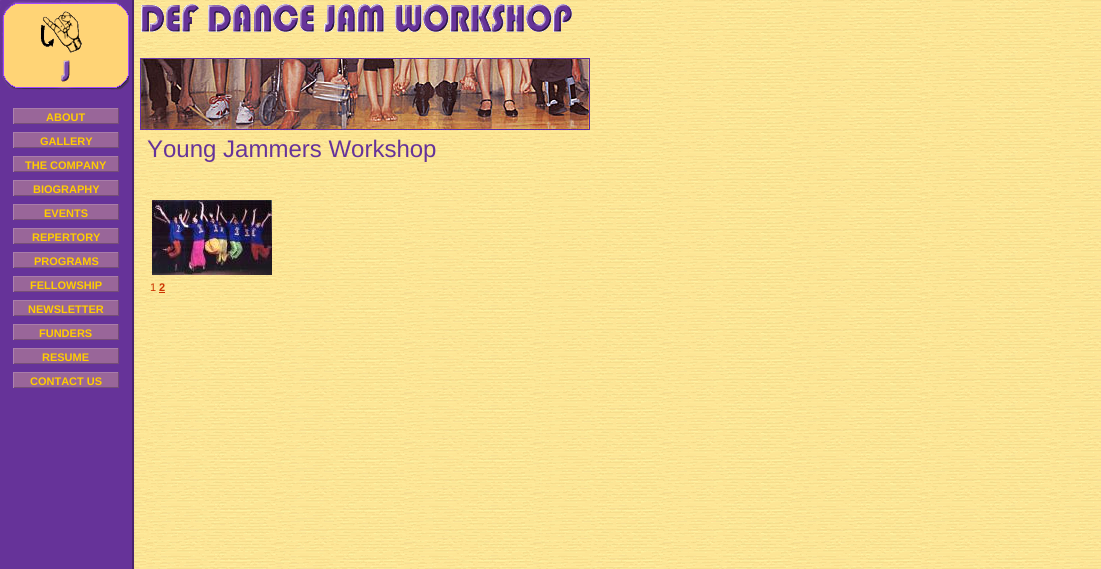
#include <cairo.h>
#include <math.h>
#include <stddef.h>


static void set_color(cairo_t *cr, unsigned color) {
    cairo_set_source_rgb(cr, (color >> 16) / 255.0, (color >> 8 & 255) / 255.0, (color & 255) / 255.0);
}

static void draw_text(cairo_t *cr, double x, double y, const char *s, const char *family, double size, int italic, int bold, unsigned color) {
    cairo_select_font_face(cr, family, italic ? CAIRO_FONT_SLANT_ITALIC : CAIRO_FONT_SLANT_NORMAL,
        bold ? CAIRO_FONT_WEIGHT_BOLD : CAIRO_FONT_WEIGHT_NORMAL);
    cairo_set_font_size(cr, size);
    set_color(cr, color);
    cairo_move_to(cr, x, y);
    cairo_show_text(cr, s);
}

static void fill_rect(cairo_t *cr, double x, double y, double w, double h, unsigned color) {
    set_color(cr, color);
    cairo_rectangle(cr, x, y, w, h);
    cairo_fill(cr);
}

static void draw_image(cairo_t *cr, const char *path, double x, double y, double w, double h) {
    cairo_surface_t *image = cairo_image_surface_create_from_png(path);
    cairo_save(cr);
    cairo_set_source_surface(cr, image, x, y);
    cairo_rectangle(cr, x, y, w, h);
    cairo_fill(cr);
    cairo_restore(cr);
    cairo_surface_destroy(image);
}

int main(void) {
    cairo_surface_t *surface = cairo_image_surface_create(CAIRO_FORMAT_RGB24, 1101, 569);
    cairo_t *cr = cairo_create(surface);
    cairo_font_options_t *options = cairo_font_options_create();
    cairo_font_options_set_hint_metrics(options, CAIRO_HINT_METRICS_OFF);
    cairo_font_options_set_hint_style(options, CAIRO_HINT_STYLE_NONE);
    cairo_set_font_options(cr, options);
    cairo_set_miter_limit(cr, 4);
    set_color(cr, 0xFFFFFF);
    cairo_paint(cr);
    draw_image(cr, "assets/img1.png", 0, 0, 1101, 569);
    draw_image(cr, "assets/img2.png", 141, 4, 431, 28);
    draw_image(cr, "assets/img3.png", 140, 58, 450, 72);
    draw_image(cr, "assets/img4.png", 0, 0, 130, 90);
    fill_rect(cr, 14, 109, 104, 14, 0x996699);
    fill_rect(cr, 13, 108, 106, 1, 0xA97DA9);
    fill_rect(cr, 118, 108, 1, 16, 0x734C73);
    fill_rect(cr, 13, 123, 106, 1, 0x764F76);
    fill_rect(cr, 13, 108, 1, 16, 0xAD83AD);
    draw_text(cr, 46, 121, "ABOUT", "Liberation Sans", 11, 0, 1, 0xFFCC00);
    fill_rect(cr, 14, 133, 104, 14, 0x996699);
    fill_rect(cr, 13, 132, 106, 1, 0xA97DA9);
    fill_rect(cr, 118, 132, 1, 16, 0x734C73);
    fill_rect(cr, 13, 147, 106, 1, 0x764F76);
    fill_rect(cr, 13, 132, 1, 16, 0xAD83AD);
    draw_text(cr, 40, 145, "GALLERY", "Liberation Sans", 11, 0, 1, 0xFFCC00);
    fill_rect(cr, 14, 157, 104, 14, 0x996699);
    fill_rect(cr, 13, 156, 106, 1, 0xA97DA9);
    fill_rect(cr, 118, 156, 1, 16, 0x734C73);
    fill_rect(cr, 13, 171, 106, 1, 0x764F76);
    fill_rect(cr, 13, 156, 1, 16, 0xAD83AD);
    draw_text(cr, 25, 169, "THE COMPANY", "Liberation Sans", 11, 0, 1, 0xFFCC00);
    fill_rect(cr, 14, 181, 104, 14, 0x996699);
    fill_rect(cr, 13, 180, 106, 1, 0xA97DA9);
    fill_rect(cr, 118, 180, 1, 16, 0x734C73);
    fill_rect(cr, 13, 195, 106, 1, 0x764F76);
    fill_rect(cr, 13, 180, 1, 16, 0xAD83AD);
    draw_text(cr, 33, 193, "BIOGRAPHY", "Liberation Sans", 11, 0, 1, 0xFFCC00);
    fill_rect(cr, 14, 205, 104, 14, 0x996699);
    fill_rect(cr, 13, 204, 106, 1, 0xA97DA9);
    fill_rect(cr, 118, 204, 1, 16, 0x734C73);
    fill_rect(cr, 13, 219, 106, 1, 0x764F76);
    fill_rect(cr, 13, 204, 1, 16, 0xAD83AD);
    draw_text(cr, 44, 217, "EVENTS", "Liberation Sans", 11, 0, 1, 0xFFCC00);
    fill_rect(cr, 14, 229, 104, 14, 0x996699);
    fill_rect(cr, 13, 228, 106, 1, 0xA97DA9);
    fill_rect(cr, 118, 228, 1, 16, 0x734C73);
    fill_rect(cr, 13, 243, 106, 1, 0x764F76);
    fill_rect(cr, 13, 228, 1, 16, 0xAD83AD);
    draw_text(cr, 32, 241, "REPERTORY", "Liberation Sans", 11, 0, 1, 0xFFCC00);
    fill_rect(cr, 14, 253, 104, 14, 0x996699);
    fill_rect(cr, 13, 252, 106, 1, 0xA97DA9);
    fill_rect(cr, 118, 252, 1, 16, 0x734C73);
    fill_rect(cr, 13, 267, 106, 1, 0x764F76);
    fill_rect(cr, 13, 252, 1, 16, 0xAD83AD);
    draw_text(cr, 34, 265, "PROGRAMS", "Liberation Sans", 11, 0, 1, 0xFFCC00);
    fill_rect(cr, 14, 277, 104, 14, 0x996699);
    fill_rect(cr, 13, 276, 106, 1, 0xA97DA9);
    fill_rect(cr, 118, 276, 1, 16, 0x734C73);
    fill_rect(cr, 13, 291, 106, 1, 0x764F76);
    fill_rect(cr, 13, 276, 1, 16, 0xAD83AD);
    draw_text(cr, 30, 289, "FELLOWSHIP", "Liberation Sans", 11, 0, 1, 0xFFCC00);
    fill_rect(cr, 14, 301, 104, 14, 0x996699);
    fill_rect(cr, 13, 300, 106, 1, 0xA97DA9);
    fill_rect(cr, 118, 300, 1, 16, 0x734C73);
    fill_rect(cr, 13, 315, 106, 1, 0x764F76);
    fill_rect(cr, 13, 300, 1, 16, 0xAD83AD);
    draw_text(cr, 28, 313, "NEWSLETTER", "Liberation Sans", 11, 0, 1, 0xFFCC00);
    fill_rect(cr, 14, 325, 104, 14, 0x996699);
    fill_rect(cr, 13, 324, 106, 1, 0xA97DA9);
    fill_rect(cr, 118, 324, 1, 16, 0x734C73);
    fill_rect(cr, 13, 339, 106, 1, 0x764F76);
    fill_rect(cr, 13, 324, 1, 16, 0xAD83AD);
    draw_text(cr, 39, 337, "FUNDERS", "Liberation Sans", 11, 0, 1, 0xFFCC00);
    fill_rect(cr, 14, 349, 104, 14, 0x996699);
    fill_rect(cr, 13, 348, 106, 1, 0xA97DA9);
    fill_rect(cr, 118, 348, 1, 16, 0x734C73);
    fill_rect(cr, 13, 363, 106, 1, 0x764F76);
    fill_rect(cr, 13, 348, 1, 16, 0xAD83AD);
    draw_text(cr, 42, 361, "RESUME", "Liberation Sans", 11, 0, 1, 0xFFCC00);
    fill_rect(cr, 14, 373, 104, 14, 0x996699);
    fill_rect(cr, 13, 372, 106, 1, 0xA97DA9);
    fill_rect(cr, 118, 372, 1, 16, 0x734C73);
    fill_rect(cr, 13, 387, 106, 1, 0x764F76);
    fill_rect(cr, 13, 372, 1, 16, 0xAD83AD);
    draw_text(cr, 30, 385, "CONTACT US", "Liberation Sans", 11, 0, 1, 0xFFCC00);
    draw_text(cr, 147, 157, "Young Jammers Workshop", "Liberation Sans", 24, 0, 0, 0x663399);
    draw_image(cr, "assets/img5.png", 152, 200, 120, 75);
    draw_text(cr, 150, 291, "1", "Liberation Sans", 11, 0, 0, 0xCC3300);
    draw_text(cr, 159, 291, "2", "Liberation Sans", 11, 0, 1, 0xCC3300);
    fill_rect(cr, 159, 292, 6, 1, 0xCC3300);
    cairo_surface_write_to_png(surface, "output.png");
    cairo_font_options_destroy(options);
    cairo_destroy(cr);
    cairo_surface_destroy(surface);
    return 0;
}
